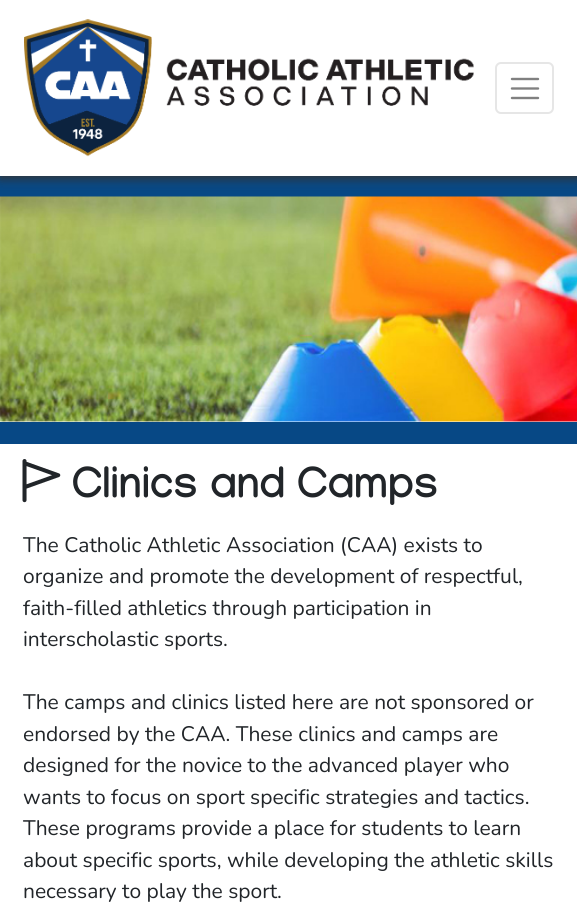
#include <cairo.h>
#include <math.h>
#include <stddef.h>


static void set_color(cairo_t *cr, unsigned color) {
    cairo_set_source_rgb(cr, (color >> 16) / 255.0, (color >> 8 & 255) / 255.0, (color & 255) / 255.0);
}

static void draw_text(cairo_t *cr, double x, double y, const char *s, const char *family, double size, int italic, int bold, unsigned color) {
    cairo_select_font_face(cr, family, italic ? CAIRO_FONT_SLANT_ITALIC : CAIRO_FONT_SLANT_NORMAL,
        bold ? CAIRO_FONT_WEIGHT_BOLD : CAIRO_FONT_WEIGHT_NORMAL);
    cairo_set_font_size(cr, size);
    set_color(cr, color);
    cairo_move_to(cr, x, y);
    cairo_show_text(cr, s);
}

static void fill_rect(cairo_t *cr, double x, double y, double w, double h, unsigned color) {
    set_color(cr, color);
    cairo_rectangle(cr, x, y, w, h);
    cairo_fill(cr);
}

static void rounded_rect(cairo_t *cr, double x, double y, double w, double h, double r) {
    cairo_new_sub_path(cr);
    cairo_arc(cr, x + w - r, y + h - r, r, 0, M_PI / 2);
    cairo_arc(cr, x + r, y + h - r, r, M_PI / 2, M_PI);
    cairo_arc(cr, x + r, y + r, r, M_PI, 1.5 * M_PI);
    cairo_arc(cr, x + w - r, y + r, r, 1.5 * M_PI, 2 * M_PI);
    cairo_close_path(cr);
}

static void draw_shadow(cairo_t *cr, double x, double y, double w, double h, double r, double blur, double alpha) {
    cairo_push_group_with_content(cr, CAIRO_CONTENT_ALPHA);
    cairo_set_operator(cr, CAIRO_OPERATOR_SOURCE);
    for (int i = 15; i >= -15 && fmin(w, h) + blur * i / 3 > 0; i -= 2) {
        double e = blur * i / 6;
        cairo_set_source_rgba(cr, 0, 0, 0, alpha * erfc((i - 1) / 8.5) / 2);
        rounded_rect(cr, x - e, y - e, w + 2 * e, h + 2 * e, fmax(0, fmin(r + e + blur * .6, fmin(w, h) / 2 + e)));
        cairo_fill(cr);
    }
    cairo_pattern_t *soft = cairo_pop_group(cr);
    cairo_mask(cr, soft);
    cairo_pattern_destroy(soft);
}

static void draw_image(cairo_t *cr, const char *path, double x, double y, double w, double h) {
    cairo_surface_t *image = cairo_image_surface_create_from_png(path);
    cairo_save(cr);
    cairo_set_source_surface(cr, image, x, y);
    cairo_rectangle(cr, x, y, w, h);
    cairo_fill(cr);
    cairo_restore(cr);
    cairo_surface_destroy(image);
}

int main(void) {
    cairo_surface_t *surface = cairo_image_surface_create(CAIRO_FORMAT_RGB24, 577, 916);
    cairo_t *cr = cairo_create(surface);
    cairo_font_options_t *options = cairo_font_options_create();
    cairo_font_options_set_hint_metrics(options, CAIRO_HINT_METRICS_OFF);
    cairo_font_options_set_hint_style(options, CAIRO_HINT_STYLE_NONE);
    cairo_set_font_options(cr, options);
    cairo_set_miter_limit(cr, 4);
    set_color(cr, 0xFFFFFF);
    cairo_paint(cr);
    fill_rect(cr, 0, 176, 577, 21, 0x074885);
    set_color(cr, 0x343434);
    draw_shadow(cr, 0, 3, 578, 176, 0, 5, 1);
    fill_rect(cr, 0, 0, 577, 176, 0xFFFFFF);
    draw_image(cr, "assets/img1.png", 24, 19, 450, 138);
    rounded_rect(cr, 496, 63, 57, 50, 5);
    set_color(cr, 0xE6E6E6);
    cairo_stroke(cr);
    cairo_new_path(cr);
    cairo_move_to(cr, 512, 79);
    cairo_line_to(cr, 538, 79);
    cairo_move_to(cr, 512, 88.5);
    cairo_line_to(cr, 538, 88.5);
    cairo_move_to(cr, 512, 98);
    cairo_line_to(cr, 538, 98);
    set_color(cr, 0x808080);
    cairo_set_line_width(cr, 2.4);
    cairo_set_line_cap(cr, CAIRO_LINE_CAP_ROUND);
    cairo_stroke(cr);
    draw_image(cr, "assets/img2.png", 0, 196, 577, 226);
    fill_rect(cr, 0, 422, 577, 22, 0x074885);
    draw_image(cr, "assets/img3.png", 22, 459, 39, 44);
    draw_text(cr, 72, 497, "Clinics and Camps", "Manjari", 43.25, 0, 1, 0x212529);
    draw_text(cr, 23, 552, "The Catholic Athletic Association (CAA) exists to", "Nunito", 21, 0, 0, 0x212529);
    draw_text(cr, 23, 583, "organize and promote the development of respectful,", "Nunito", 21, 0, 0, 0x212529);
    draw_text(cr, 23, 615, "faith-filled athletics through participation in", "Nunito", 21, 0, 0, 0x212529);
    draw_text(cr, 23, 646, "interscholastic sports.", "Nunito", 21, 0, 0, 0x212529);
    draw_text(cr, 23, 709, "The camps and clinics listed here are not sponsored or", "Nunito", 21, 0, 0, 0x212529);
    draw_text(cr, 23, 741, "endorsed by the CAA. These clinics and camps are", "Nunito", 21, 0, 0, 0x212529);
    draw_text(cr, 23, 772, "designed for the novice to the advanced player who", "Nunito", 21, 0, 0, 0x212529);
    draw_text(cr, 23, 804, "wants to focus on sport specific strategies and tactics.", "Nunito", 21, 0, 0, 0x212529);
    draw_text(cr, 23, 835, "These programs provide a place for students to learn", "Nunito", 21, 0, 0, 0x212529);
    draw_text(cr, 23, 867, "about specific sports, while developing the athletic skills", "Nunito", 21, 0, 0, 0x212529);
    draw_text(cr, 23, 898, "necessary to play the sport.", "Nunito", 21, 0, 0, 0x212529);
    cairo_surface_write_to_png(surface, "output.png");
    cairo_font_options_destroy(options);
    cairo_destroy(cr);
    cairo_surface_destroy(surface);
    return 0;
}
